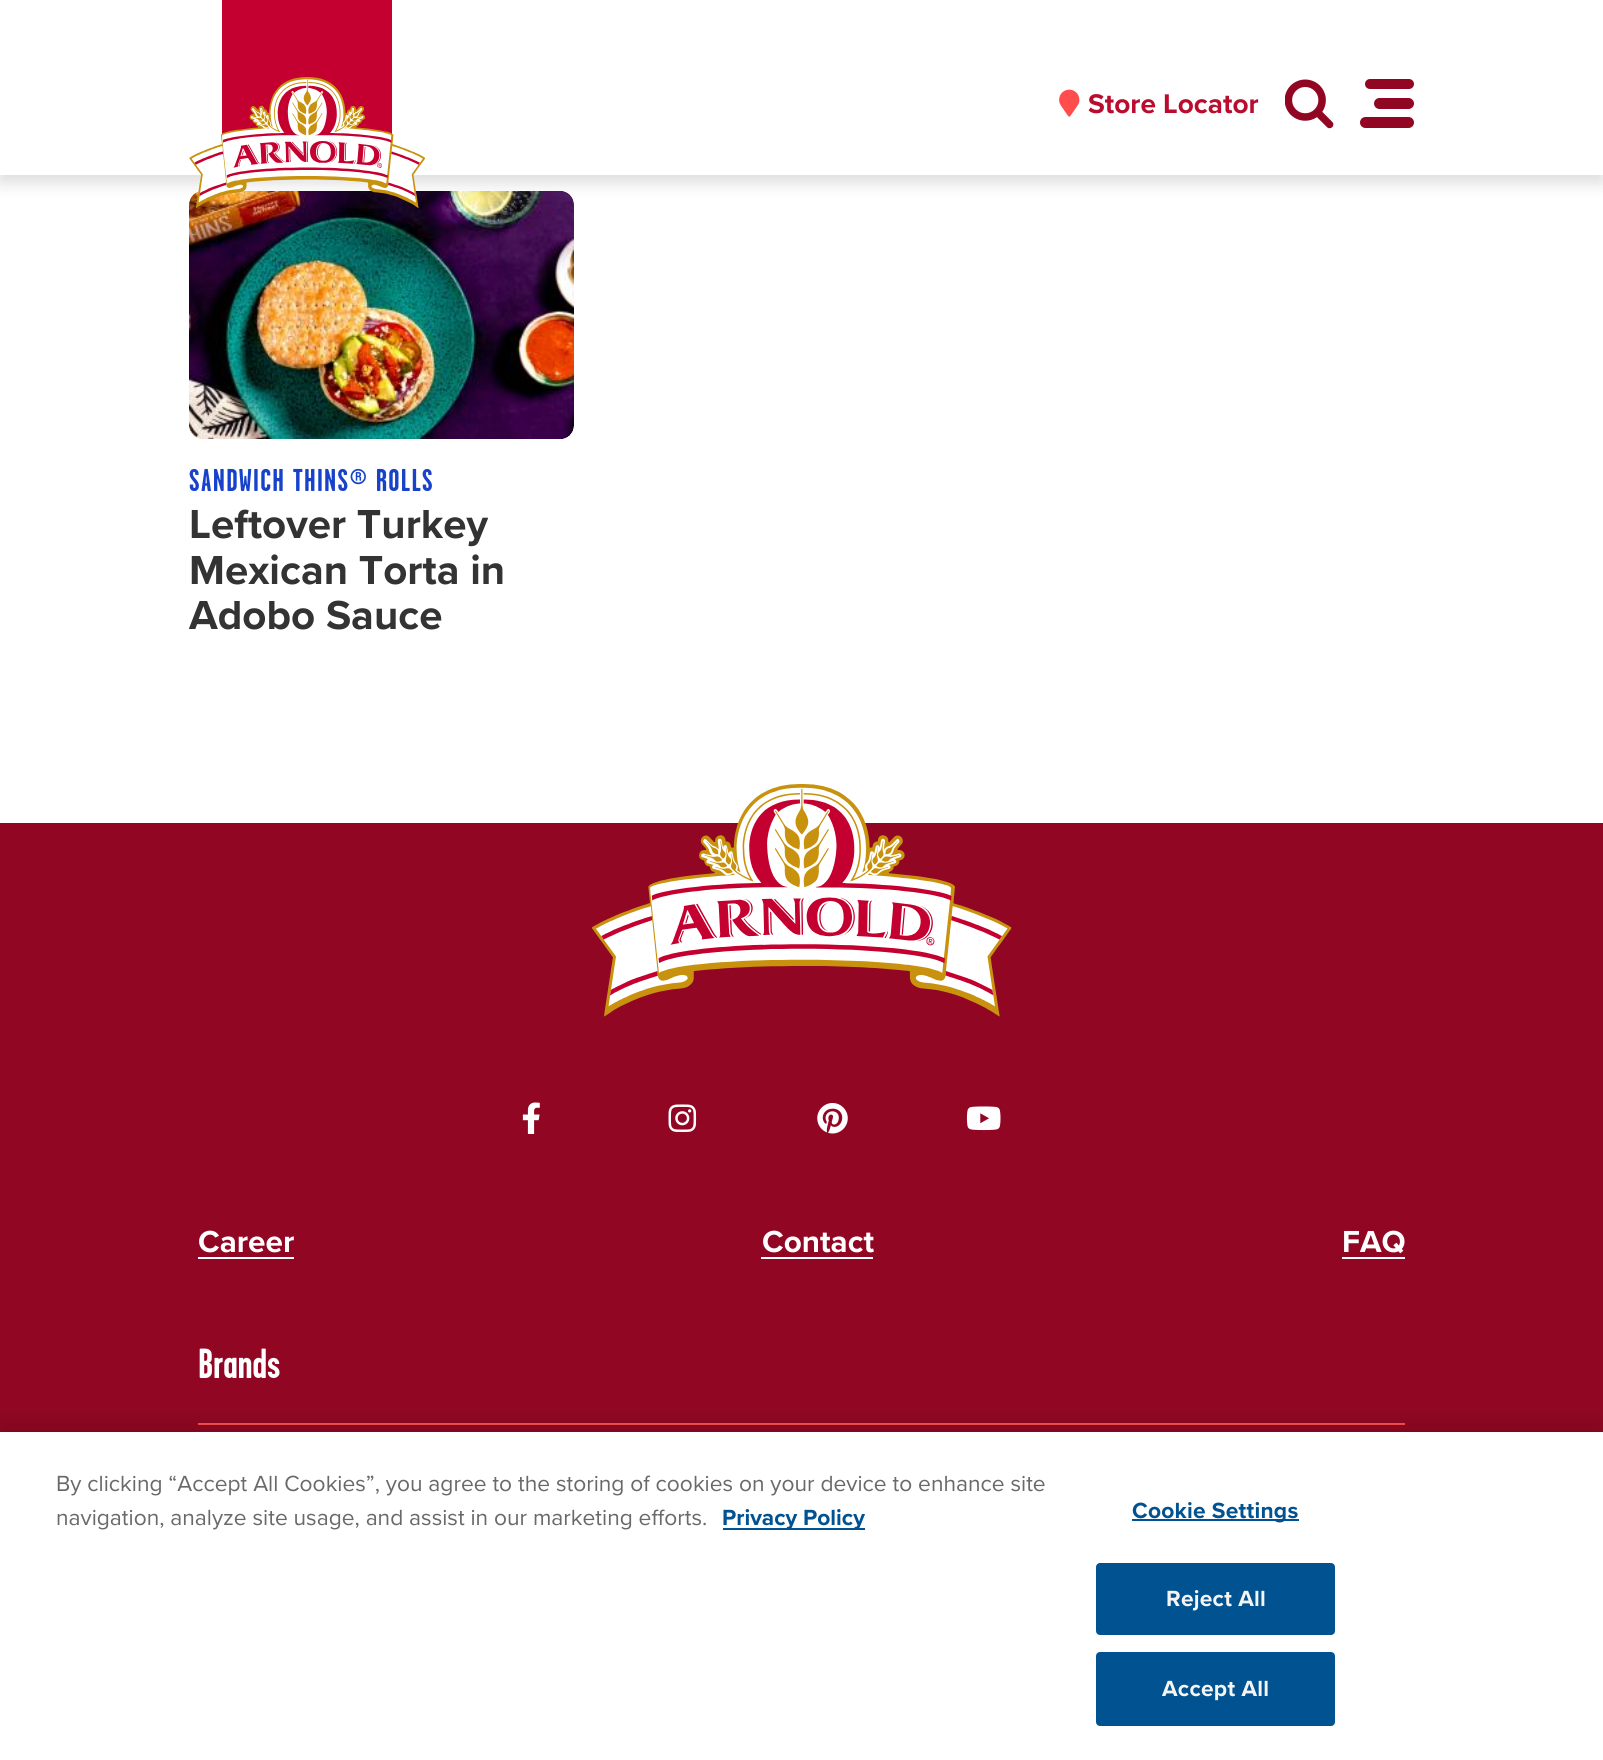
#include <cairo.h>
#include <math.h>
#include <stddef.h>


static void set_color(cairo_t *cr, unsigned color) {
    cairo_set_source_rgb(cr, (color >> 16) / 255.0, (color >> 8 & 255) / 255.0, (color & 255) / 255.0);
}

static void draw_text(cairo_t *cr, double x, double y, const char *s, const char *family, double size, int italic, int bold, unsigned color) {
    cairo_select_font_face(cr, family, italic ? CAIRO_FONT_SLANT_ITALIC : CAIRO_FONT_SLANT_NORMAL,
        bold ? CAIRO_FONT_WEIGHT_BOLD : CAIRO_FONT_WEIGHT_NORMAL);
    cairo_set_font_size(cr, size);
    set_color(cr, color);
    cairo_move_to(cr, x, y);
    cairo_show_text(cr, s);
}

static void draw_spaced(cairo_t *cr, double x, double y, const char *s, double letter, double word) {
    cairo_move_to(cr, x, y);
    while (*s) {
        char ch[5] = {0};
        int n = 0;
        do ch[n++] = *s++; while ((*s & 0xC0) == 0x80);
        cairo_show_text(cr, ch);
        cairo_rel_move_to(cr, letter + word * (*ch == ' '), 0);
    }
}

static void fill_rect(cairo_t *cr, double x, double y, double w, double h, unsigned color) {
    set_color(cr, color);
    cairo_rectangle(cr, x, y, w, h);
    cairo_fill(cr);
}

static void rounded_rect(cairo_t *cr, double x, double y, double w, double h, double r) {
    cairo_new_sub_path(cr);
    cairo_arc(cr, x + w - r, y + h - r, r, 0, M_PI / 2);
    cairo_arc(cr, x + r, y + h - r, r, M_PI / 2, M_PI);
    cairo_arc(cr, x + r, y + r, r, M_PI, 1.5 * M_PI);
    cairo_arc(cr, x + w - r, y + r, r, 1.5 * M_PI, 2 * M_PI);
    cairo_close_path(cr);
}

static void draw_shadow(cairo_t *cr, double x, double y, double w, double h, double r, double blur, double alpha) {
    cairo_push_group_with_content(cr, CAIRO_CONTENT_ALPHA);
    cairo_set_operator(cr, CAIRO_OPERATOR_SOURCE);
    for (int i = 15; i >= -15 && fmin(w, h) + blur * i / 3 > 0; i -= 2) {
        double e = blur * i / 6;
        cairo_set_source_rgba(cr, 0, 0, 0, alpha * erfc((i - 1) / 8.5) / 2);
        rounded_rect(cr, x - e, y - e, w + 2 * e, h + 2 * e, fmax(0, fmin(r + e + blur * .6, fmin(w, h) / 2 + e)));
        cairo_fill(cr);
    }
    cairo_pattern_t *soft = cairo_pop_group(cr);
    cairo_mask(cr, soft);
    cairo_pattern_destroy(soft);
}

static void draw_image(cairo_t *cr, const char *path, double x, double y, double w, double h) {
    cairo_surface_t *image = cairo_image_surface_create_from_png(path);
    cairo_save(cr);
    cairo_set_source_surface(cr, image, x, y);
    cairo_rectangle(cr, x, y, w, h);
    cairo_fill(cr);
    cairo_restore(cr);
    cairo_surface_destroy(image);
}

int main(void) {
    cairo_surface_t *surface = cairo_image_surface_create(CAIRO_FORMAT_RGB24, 1603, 1760);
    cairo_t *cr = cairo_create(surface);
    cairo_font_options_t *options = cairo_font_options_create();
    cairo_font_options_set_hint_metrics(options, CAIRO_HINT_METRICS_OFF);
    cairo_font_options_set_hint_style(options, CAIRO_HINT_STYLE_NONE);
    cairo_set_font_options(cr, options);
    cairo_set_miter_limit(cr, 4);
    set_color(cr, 0xFFFFFF);
    cairo_paint(cr);
    draw_image(cr, "assets/img4.png", 189, 191, 385, 248);
    set_color(cr, 0x000000);
    draw_shadow(cr, 0, 7, 1603, 175, 0, 9, 0.15);
    fill_rect(cr, 0, 0, 1603, 175, 0xFFFFFF);
    fill_rect(cr, 222, 0, 170, 134, 0xC3002F);
    draw_image(cr, "assets/img1.png", 189, 77, 236, 131);
    draw_image(cr, "assets/img2.png", 1059, 89, 21, 28);
    draw_text(cr, 1088, 113, "Store Locator", "Proxima Nova", 28, 0, 1, 0xBA0C2F);
    draw_image(cr, "assets/img3.png", 1285, 79, 49, 50);
    set_color(cr, 0x910723);
    rounded_rect(cr, 1365, 79, 49, 10, 5);
    cairo_fill(cr);
    rounded_rect(cr, 1374, 98, 40, 11, 5.5);
    cairo_fill(cr);
    rounded_rect(cr, 1360, 117, 54, 11, 5.5);
    cairo_fill(cr);
    cairo_select_font_face(cr, "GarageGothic", CAIRO_FONT_SLANT_NORMAL, CAIRO_FONT_WEIGHT_BOLD);
    cairo_set_font_size(cr, 31.5);
    set_color(cr, 0x1842C9);
    draw_spaced(cr, 189, 491, "SANDWICH THINS® ROLLS", 1.25, 0);
    draw_text(cr, 189, 538, "Leftover Turkey", "Proxima Nova", 42, 0, 1, 0x333333);
    draw_text(cr, 189, 584, "Mexican Torta in", "Proxima Nova", 42, 0, 1, 0x333333);
    draw_text(cr, 189, 629, "Adobo Sauce", "Proxima Nova", 42, 0, 1, 0x333333);
    fill_rect(cr, 0, 823, 1603, 609, 0x910723);
    draw_image(cr, "assets/img5.png", 592, 784, 420, 233);
    draw_image(cr, "assets/img6.png", 522, 1102, 18, 32);
    draw_image(cr, "assets/img7.png", 668, 1104, 29, 28);
    draw_image(cr, "assets/img8.png", 817, 1103, 31, 31);
    draw_image(cr, "assets/img9.png", 966, 1106, 35, 25);
    draw_text(cr, 198, 1252, "Career", "Proxima Nova", 31.5, 0, 1, 0xFFFFFF);
    fill_rect(cr, 198, 1257, 96, 2, 0xFFFFFF);
    draw_text(cr, 762, 1252, "Contact", "Proxima Nova", 31.5, 0, 1, 0xFFFFFF);
    fill_rect(cr, 761, 1257, 112, 2, 0xFFFFFF);
    draw_text(cr, 1342, 1252, "FAQ", "Proxima Nova", 31.5, 0, 1, 0xFFFFFF);
    fill_rect(cr, 1342, 1257, 63, 2, 0xFFFFFF);
    fill_rect(cr, 198, 1423, 1207, 2, 0xFF4D4D);
    draw_text(cr, 198, 1378, "Brands", "GarageGothic", 42, 0, 1, 0xFFFFFF);
    set_color(cr, 0x000000);
    draw_shadow(cr, 0, 1432, 1603, 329, 0, 16, 0.2);
    fill_rect(cr, 0, 1432, 1603, 328, 0xFFFFFF);
    draw_text(cr, 56, 1491, "By clicking “Accept All Cookies”, you agree to the storing of cookies on your device to enhance site", "Proxima Nova", 22.75, 0, 0, 0x696969);
    draw_text(cr, 56, 1525, "navigation, analyze site usage, and assist in our marketing efforts.", "Proxima Nova", 22.75, 0, 0, 0x696969);
    fill_rect(cr, 723, 1528, 142, 2, 0x005290);
    draw_text(cr, 722, 1525, "Privacy Policy", "Proxima Nova", 22.75, 0, 1, 0x005290);
    fill_rect(cr, 1132, 1519, 167, 2, 0x005290);
    draw_spaced(cr, 1132, 1518, "Cookie Settings", 0.25, 0);
    rounded_rect(cr, 1097, 1564, 237, 70, 3);
    cairo_fill_preserve(cr);
    cairo_stroke(cr);
    set_color(cr, 0xF5F5F5);
    draw_spaced(cr, 1166, 1606, "Reject All", 0.25, 0);
    set_color(cr, 0x005290);
    rounded_rect(cr, 1097, 1653, 237, 72, 3);
    cairo_fill_preserve(cr);
    cairo_stroke(cr);
    set_color(cr, 0xF5F5F5);
    draw_spaced(cr, 1162, 1696, "Accept All", 0.25, 0);
    cairo_surface_write_to_png(surface, "output.png");
    cairo_font_options_destroy(options);
    cairo_destroy(cr);
    cairo_surface_destroy(surface);
    return 0;
}
